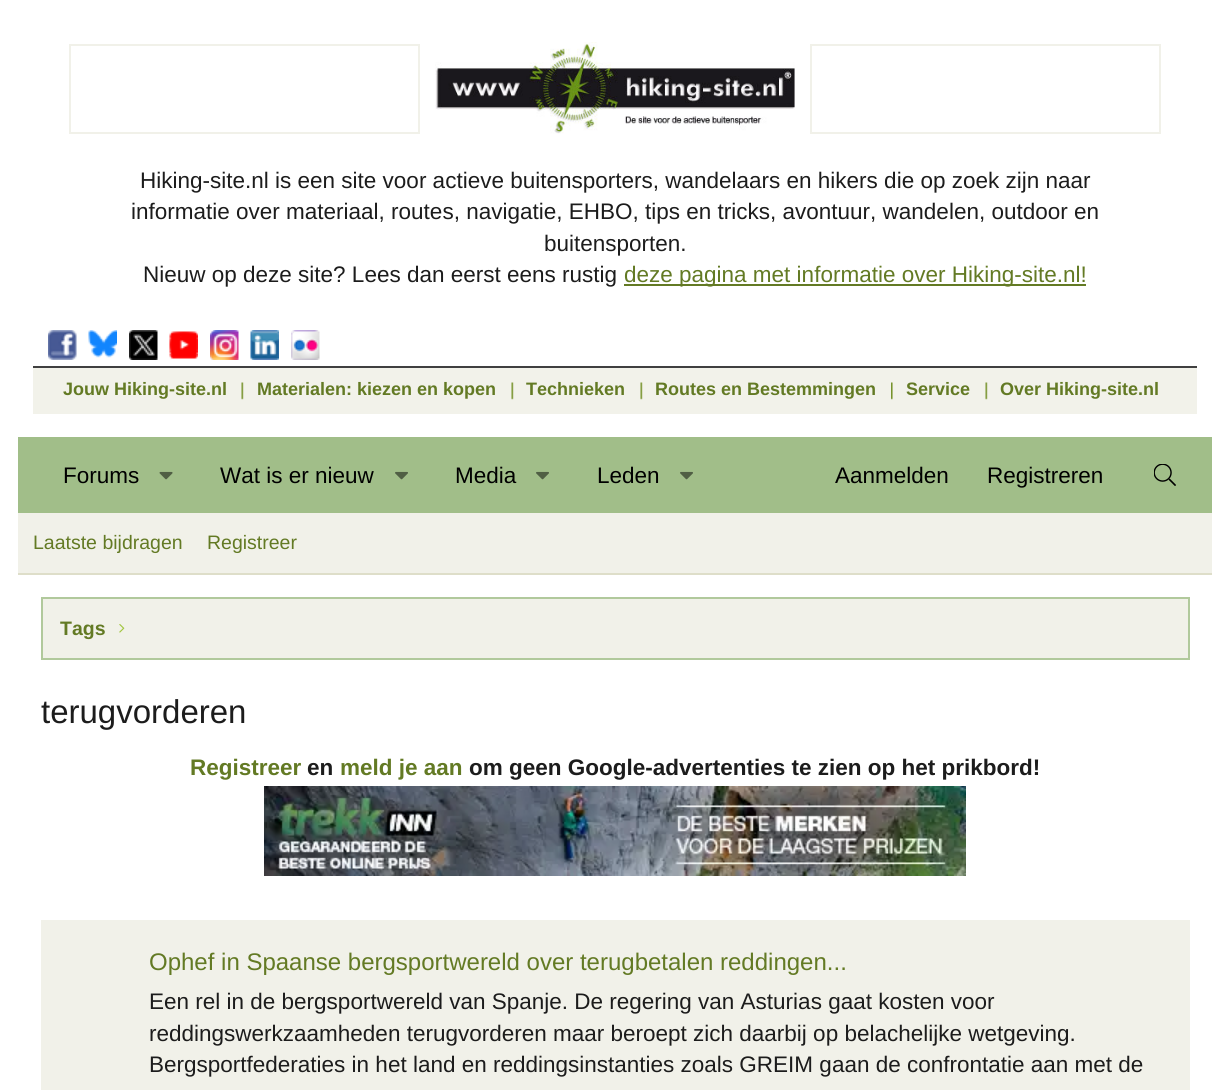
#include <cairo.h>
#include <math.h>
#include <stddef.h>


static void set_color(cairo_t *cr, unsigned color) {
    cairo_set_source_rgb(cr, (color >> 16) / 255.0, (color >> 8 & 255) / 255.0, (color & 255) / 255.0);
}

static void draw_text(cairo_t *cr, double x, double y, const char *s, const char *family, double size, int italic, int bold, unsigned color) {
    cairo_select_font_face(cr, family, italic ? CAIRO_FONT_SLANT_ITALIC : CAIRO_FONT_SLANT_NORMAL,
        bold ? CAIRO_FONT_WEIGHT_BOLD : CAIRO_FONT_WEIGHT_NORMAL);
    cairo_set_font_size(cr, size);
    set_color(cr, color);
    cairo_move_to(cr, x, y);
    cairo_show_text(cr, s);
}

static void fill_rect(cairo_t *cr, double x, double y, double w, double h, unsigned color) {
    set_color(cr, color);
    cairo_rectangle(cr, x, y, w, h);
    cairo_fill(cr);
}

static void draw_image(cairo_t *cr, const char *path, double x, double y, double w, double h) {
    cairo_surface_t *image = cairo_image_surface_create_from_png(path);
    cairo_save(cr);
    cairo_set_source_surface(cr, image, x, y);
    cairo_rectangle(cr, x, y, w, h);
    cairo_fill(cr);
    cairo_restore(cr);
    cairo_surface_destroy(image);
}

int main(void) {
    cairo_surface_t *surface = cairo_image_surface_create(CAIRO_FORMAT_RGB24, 1229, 1090);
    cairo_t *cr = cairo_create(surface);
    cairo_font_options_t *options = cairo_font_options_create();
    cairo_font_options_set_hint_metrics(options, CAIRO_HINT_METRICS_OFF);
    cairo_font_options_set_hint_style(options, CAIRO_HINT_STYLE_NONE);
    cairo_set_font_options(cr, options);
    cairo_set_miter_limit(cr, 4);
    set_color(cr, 0xFFFFFF);
    cairo_paint(cr);
    cairo_rectangle(cr, 70, 45, 349, 88);
    set_color(cr, 0xF1F1E9);
    cairo_stroke(cr);
    draw_image(cr, "assets/img1.png", 435, 42, 360, 92);
    cairo_rectangle(cr, 811, 45, 349, 88);
    cairo_stroke(cr);
    draw_text(cr, 140, 188, "Hiking-site.nl is een site voor actieve buitensporters, wandelaars en hikers die op zoek zijn naar", "Liberation Sans", 22.5, 0, 0, 0x1C1C1C);
    draw_text(cr, 131, 219, "informatie over materiaal, routes, navigatie, EHBO, tips en tricks, avontuur, wandelen, outdoor en", "Liberation Sans", 22.5, 0, 0, 0x1C1C1C);
    draw_text(cr, 544, 251, "buitensporten.", "Liberation Sans", 22.5, 0, 0, 0x1C1C1C);
    draw_text(cr, 143, 282, "Nieuw op deze site? Lees dan eerst eens rustig", "Liberation Sans", 22.5, 0, 0, 0x1C1C1C);
    fill_rect(cr, 624, 284, 462, 2, 0x637A24);
    draw_text(cr, 624, 282, "deze pagina met informatie over Hiking-site.nl!", "Liberation Sans", 22.5, 0, 0, 0x637A24);
    draw_image(cr, "assets/img2.png", 48, 330, 29, 30);
    draw_image(cr, "assets/img3.png", 88, 330, 29, 28);
    draw_image(cr, "assets/img4.png", 129, 330, 29, 30);
    draw_image(cr, "assets/img5.png", 169, 331, 29, 28);
    draw_image(cr, "assets/img6.png", 210, 330, 29, 30);
    draw_image(cr, "assets/img7.png", 250, 330, 29, 30);
    draw_image(cr, "assets/img8.png", 291, 330, 29, 30);
    fill_rect(cr, 33, 368, 1164, 46, 0xF2F2EA);
    fill_rect(cr, 33, 366, 1164, 2, 0x404040);
    draw_text(cr, 63, 395, "Jouw Hiking-site.nl", "Liberation Sans", 18, 0, 1, 0x637A24);
    draw_image(cr, "assets/img9.png", 241, 382, 3, 18);
    draw_text(cr, 257, 395, "Materialen: kiezen en kopen", "Liberation Sans", 18, 0, 1, 0x637A24);
    draw_image(cr, "assets/img9.png", 511, 382, 3, 18);
    draw_text(cr, 526, 395, "Technieken", "Liberation Sans", 18, 0, 1, 0x637A24);
    draw_image(cr, "assets/img9.png", 640, 382, 3, 18);
    draw_text(cr, 655, 395, "Routes en Bestemmingen", "Liberation Sans", 18, 0, 1, 0x637A24);
    draw_image(cr, "assets/img10.png", 891, 382, 2, 18);
    draw_text(cr, 906, 395, "Service", "Liberation Sans", 18, 0, 1, 0x637A24);
    draw_image(cr, "assets/img9.png", 985, 382, 3, 18);
    draw_text(cr, 1000, 395, "Over Hiking-site.nl", "Liberation Sans", 18, 0, 1, 0x637A24);
    fill_rect(cr, 18, 437, 1194, 76, 0xA1BE89);
    draw_text(cr, 63, 483, "Forums", "Liberation Sans", 22.5, 0, 0, 0x000000);
    draw_image(cr, "assets/img11.png", 159, 471, 14, 9);
    draw_text(cr, 220, 483, "Wat is er nieuw", "Liberation Sans", 22.5, 0, 0, 0x000000);
    draw_image(cr, "assets/img12.png", 395, 471, 13, 9);
    draw_text(cr, 455, 483, "Media", "Liberation Sans", 22.5, 0, 0, 0x000000);
    draw_image(cr, "assets/img12.png", 536, 471, 13, 9);
    draw_text(cr, 597, 483, "Leden", "Liberation Sans", 22.5, 0, 0, 0x000000);
    draw_image(cr, "assets/img12.png", 680, 471, 13, 9);
    draw_text(cr, 835, 483, "Aanmelden", "Liberation Sans", 22.5, 0, 0, 0x000000);
    draw_text(cr, 987, 483, "Registreren", "Liberation Sans", 22.5, 0, 0, 0x000000);
    draw_image(cr, "assets/img13.png", 1154, 464, 22, 22);
    fill_rect(cr, 18, 513, 1194, 60, 0xF1F1E9);
    fill_rect(cr, 18, 573, 1194, 2, 0xDEDEC9);
    draw_text(cr, 33, 549, "Laatste bijdragen", "Liberation Sans", 19.5, 0, 0, 0x637A24);
    draw_text(cr, 207, 549, "Registreer", "Liberation Sans", 19.5, 0, 0, 0x637A24);
    set_color(cr, 0xF1F1E9);
    cairo_rectangle(cr, 42, 598, 1147, 61);
    cairo_fill_preserve(cr);
    set_color(cr, 0xB1C99C);
    cairo_stroke(cr);
    draw_text(cr, 60, 635, "Tags", "Liberation Sans", 19.5, 0, 1, 0x637A24);
    draw_image(cr, "assets/img14.png", 119, 624, 6, 9);
    draw_text(cr, 41, 723, "terugvorderen", "Liberation Sans", 33, 0, 0, 0x1C1C1C);
    draw_text(cr, 190, 775, "Registreer", "Liberation Sans", 22.5, 0, 1, 0x637A24);
    draw_text(cr, 307, 775, "en", "Liberation Sans", 22.5, 0, 1, 0x1C1C1C);
    draw_text(cr, 340, 775, "meld je aan", "Liberation Sans", 22.5, 0, 1, 0x637A24);
    draw_text(cr, 469, 775, "om geen Google-advertenties te zien op het prikbord!", "Liberation Sans", 22.5, 0, 1, 0x1C1C1C);
    draw_image(cr, "assets/img15.png", 264, 786, 702, 90);
    fill_rect(cr, 41, 920, 1149, 170, 0xF1F1E9);
    draw_text(cr, 149, 970, "Ophef in Spaanse bergsportwereld over terugbetalen reddingen...", "Liberation Sans", 24, 0, 0, 0x637A24);
    draw_text(cr, 149, 1009, "Een rel in de bergsportwereld van Spanje. De regering van Asturias gaat kosten voor", "Liberation Sans", 22.5, 0, 0, 0x1C1C1C);
    draw_text(cr, 149, 1041, "reddingswerkzaamheden terugvorderen maar beroept zich daarbij op belachelijke wetgeving.", "Liberation Sans", 22.5, 0, 0, 0x1C1C1C);
    draw_text(cr, 149, 1072, "Bergsportfederaties in het land en reddingsinstanties zoals GREIM gaan de confrontatie aan met de", "Liberation Sans", 22.5, 0, 0, 0x1C1C1C);
    cairo_surface_write_to_png(surface, "output.png");
    cairo_font_options_destroy(options);
    cairo_destroy(cr);
    cairo_surface_destroy(surface);
    return 0;
}
